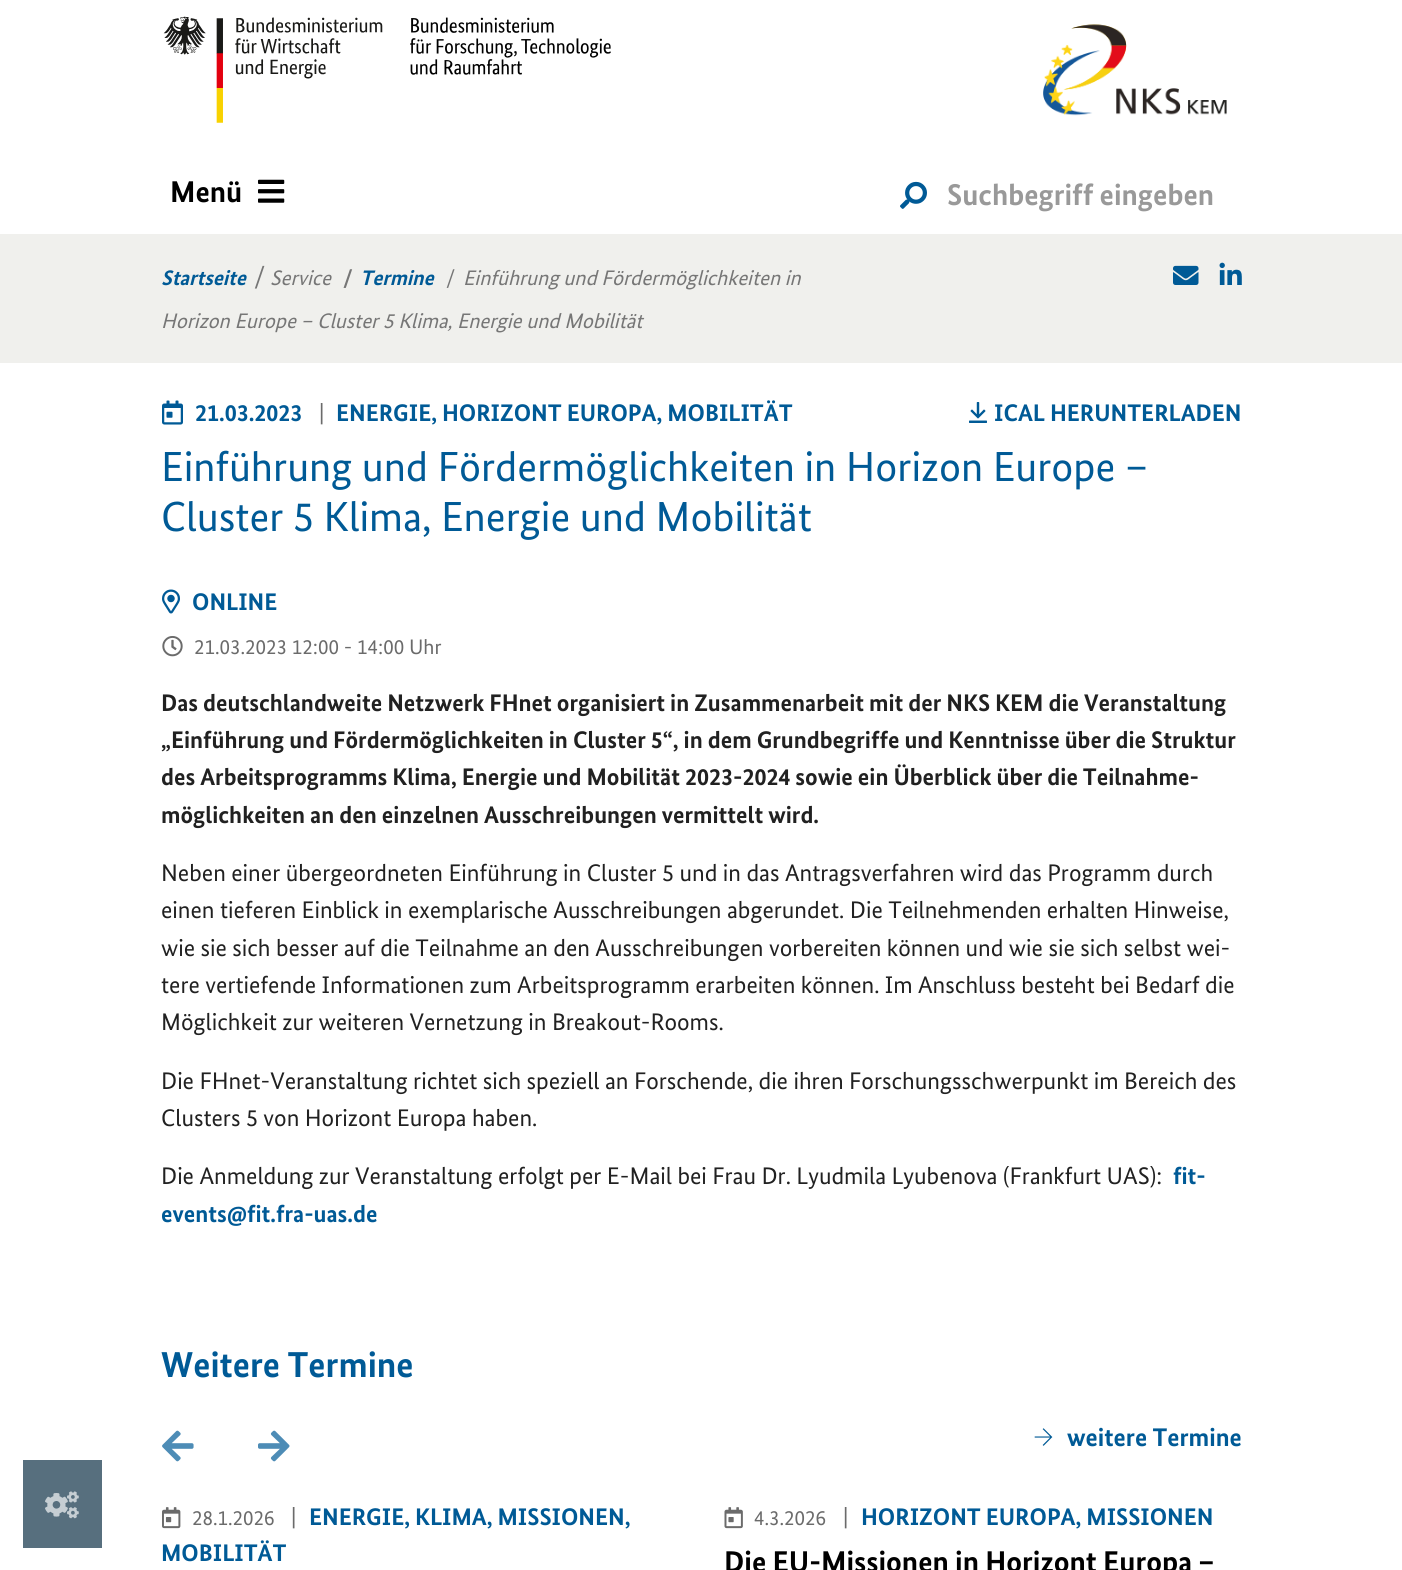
#include <cairo.h>
#include <math.h>
#include <stddef.h>


static void set_color(cairo_t *cr, unsigned color) {
    cairo_set_source_rgb(cr, (color >> 16) / 255.0, (color >> 8 & 255) / 255.0, (color & 255) / 255.0);
}

static void draw_text(cairo_t *cr, double x, double y, const char *s, const char *family, double size, int italic, int bold, unsigned color) {
    cairo_select_font_face(cr, family, italic ? CAIRO_FONT_SLANT_ITALIC : CAIRO_FONT_SLANT_NORMAL,
        bold ? CAIRO_FONT_WEIGHT_BOLD : CAIRO_FONT_WEIGHT_NORMAL);
    cairo_set_font_size(cr, size);
    set_color(cr, color);
    cairo_move_to(cr, x, y);
    cairo_show_text(cr, s);
}

static void fill_rect(cairo_t *cr, double x, double y, double w, double h, unsigned color) {
    set_color(cr, color);
    cairo_rectangle(cr, x, y, w, h);
    cairo_fill(cr);
}

static void draw_image(cairo_t *cr, const char *path, double x, double y, double w, double h) {
    cairo_surface_t *image = cairo_image_surface_create_from_png(path);
    cairo_save(cr);
    cairo_set_source_surface(cr, image, x, y);
    cairo_rectangle(cr, x, y, w, h);
    cairo_fill(cr);
    cairo_restore(cr);
    cairo_surface_destroy(image);
}

int main(void) {
    cairo_surface_t *surface = cairo_image_surface_create(CAIRO_FORMAT_RGB24, 1402, 1570);
    cairo_t *cr = cairo_create(surface);
    cairo_font_options_t *options = cairo_font_options_create();
    cairo_font_options_set_hint_metrics(options, CAIRO_HINT_METRICS_OFF);
    cairo_font_options_set_hint_style(options, CAIRO_HINT_STYLE_NONE);
    cairo_set_font_options(cr, options);
    cairo_set_miter_limit(cr, 4);
    set_color(cr, 0xFFFFFF);
    cairo_paint(cr);
    fill_rect(cr, 23, 1460, 79, 88, 0x576F7E);
    draw_image(cr, "assets/img1.png", 45, 1491, 34, 28);
    draw_image(cr, "assets/img2.png", 163, 16, 220, 107);
    draw_image(cr, "assets/img3.png", 410, 17, 201, 58);
    draw_image(cr, "assets/img4.png", 1043, 24, 184, 92);
    draw_text(cr, 170, 202, "Menü", "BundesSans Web", 30, 0, 1, 0x000000);
    draw_image(cr, "assets/img5.png", 258, 179, 27, 24);
    draw_image(cr, "assets/img6.png", 900, 181, 27, 28);
    draw_text(cr, 947, 205, "Suchbegriff eingeben", "BundesSans Web", 30, 0, 1, 0x999999);
    fill_rect(cr, 0, 234, 1402, 129, 0xF0F0ED);
    draw_text(cr, 161, 285, "Startseite", "BundesSans Web", 21, 1, 1, 0x005A96);
    draw_text(cr, 254, 285, "/", "BundesSans Web", 25.5, 0, 0, 0x767676);
    draw_text(cr, 270, 285, "Service", "BundesSans Web", 21, 1, 0, 0x767676);
    draw_text(cr, 343, 285, "/", "BundesSans Web", 21, 0, 1, 0x767676);
    draw_text(cr, 360, 285, "Termine", "BundesSans Web", 21, 1, 1, 0x005A96);
    draw_text(cr, 446, 285, "/", "BundesSans Web", 21, 0, 0, 0x767676);
    draw_text(cr, 463, 285, "Einführung und Fördermöglichkeiten in", "BundesSans Web", 21, 1, 0, 0x767676);
    draw_text(cr, 161, 328, "Horizon Europe – Cluster 5 Klima, Energie und Mobilität", "BundesSans Web", 21, 1, 0, 0x767676);
    draw_image(cr, "assets/img7.png", 1173, 265, 26, 20);
    draw_image(cr, "assets/img8.png", 1219, 262, 23, 23);
    draw_image(cr, "assets/img9.png", 162, 400, 21, 25);
    draw_text(cr, 195, 421, "21.03.2023", "BundesSans Web", 24, 0, 1, 0x005A96);
    draw_text(cr, 319, 421, "|", "BundesSans Web", 24, 0, 0, 0x6B6B6B);
    draw_text(cr, 336, 421, "ENERGIE, HORIZONT EUROPA, MOBILITÄT", "BundesSans Web", 24, 0, 1, 0x005A96);
    draw_image(cr, "assets/img10.png", 969, 402, 18, 21);
    draw_text(cr, 994, 421, "ICAL HERUNTERLADEN", "BundesSans Web", 24, 0, 1, 0x005A96);
    draw_text(cr, 161, 481, "Einführung und Fördermöglichkeiten in Horizon Europe –", "BundesSans Web", 42, 0, 0, 0x005A96);
    draw_text(cr, 161, 531, "Cluster 5 Klima, Energie und Mobilität", "BundesSans Web", 42, 0, 0, 0x005A96);
    draw_image(cr, "assets/img11.png", 162, 589, 18, 25);
    draw_text(cr, 192, 610, "ONLINE", "BundesSans Web", 24, 0, 1, 0x005A96);
    draw_image(cr, "assets/img12.png", 162, 636, 21, 21);
    draw_text(cr, 194, 654, "21.03.2023 12:00 - 14:00 Uhr", "BundesSans Web", 21, 0, 0, 0x6B6B6B);
    draw_text(cr, 161, 711, "Das deutschlandweite Netzwerk FHnet organisiert in Zusammenarbeit mit der NKS KEM die Veranstaltung", "BundesSans Web", 24, 0, 1, 0x212121);
    draw_text(cr, 161, 748, "„Einführung und Fördermöglichkeiten in Cluster 5“, in dem Grundbegriffe und Kenntnisse über die Struktur", "BundesSans Web", 24, 0, 1, 0x212121);
    draw_text(cr, 161, 785, "des Arbeitsprogramms Klima, Energie und Mobilität 2023-2024 sowie ein Überblick über die Teilnahme-", "BundesSans Web", 24, 0, 1, 0x212121);
    draw_text(cr, 161, 823, "möglichkeiten an den einzelnen Ausschreibungen vermittelt wird.", "BundesSans Web", 24, 0, 1, 0x212121);
    draw_text(cr, 161, 881, "Neben einer übergeordneten Einführung in Cluster 5 und in das Antragsverfahren wird das Programm durch", "BundesSans Web", 24, 0, 0, 0x212121);
    draw_text(cr, 161, 918, "einen tieferen Einblick in exemplarische Ausschreibungen abgerundet. Die Teilnehmenden erhalten Hinweise,", "BundesSans Web", 24, 0, 0, 0x212121);
    draw_text(cr, 161, 956, "wie sie sich besser auf die Teilnahme an den Ausschreibungen vorbereiten können und wie sie sich selbst wei-", "BundesSans Web", 24, 0, 0, 0x212121);
    draw_text(cr, 161, 993, "tere vertiefende Informationen zum Arbeitsprogramm erarbeiten können. Im Anschluss besteht bei Bedarf die", "BundesSans Web", 24, 0, 0, 0x212121);
    draw_text(cr, 161, 1030, "Möglichkeit zur weiteren Vernetzung in Breakout-Rooms.", "BundesSans Web", 24, 0, 0, 0x212121);
    draw_text(cr, 161, 1089, "Die FHnet-Veranstaltung richtet sich speziell an Forschende, die ihren Forschungsschwerpunkt im Bereich des", "BundesSans Web", 24, 0, 0, 0x212121);
    draw_text(cr, 161, 1126, "Clusters 5 von Horizont Europa haben.", "BundesSans Web", 24, 0, 0, 0x212121);
    draw_text(cr, 161, 1184, "Die Anmeldung zur Veranstaltung erfolgt per E-Mail bei Frau Dr. Lyudmila Lyubenova (Frankfurt UAS):", "BundesSans Web", 24, 0, 0, 0x212121);
    draw_text(cr, 1173, 1184, "fit-", "BundesSans Web", 24, 0, 1, 0x005A96);
    draw_text(cr, 161, 1222, "events@fit.fra-uas.de", "BundesSans Web", 24, 0, 1, 0x005A96);
    draw_text(cr, 161, 1377, "Weitere Termine", "BundesSans Web", 36, 0, 1, 0x005A96);
    draw_image(cr, "assets/img13.png", 162, 1430, 32, 32);
    draw_image(cr, "assets/img14.png", 258, 1430, 32, 32);
    draw_image(cr, "assets/img15.png", 1034, 1428, 19, 18);
    draw_text(cr, 1067, 1446, "weitere Termine", "BundesSans Web", 25.5, 0, 1, 0x005A96);
    draw_image(cr, "assets/img16.png", 162, 1507, 19, 22);
    draw_text(cr, 192, 1525, "28.1.2026", "BundesSans Web", 21, 0, 0, 0x6B6B6B);
    draw_text(cr, 291, 1525, "|", "BundesSans Web", 24, 0, 0, 0x6B6B6B);
    draw_text(cr, 309, 1525, "ENERGIE, KLIMA, MISSIONEN,", "BundesSans Web", 24, 0, 1, 0x005A96);
    draw_text(cr, 161, 1561, "MOBILITÄT", "BundesSans Web", 24, 0, 1, 0x005A96);
    draw_image(cr, "assets/img17.png", 724, 1507, 19, 22);
    draw_text(cr, 754, 1525, "4.3.2026", "BundesSans Web", 21, 0, 0, 0x6B6B6B);
    draw_text(cr, 843, 1525, "|", "BundesSans Web", 24, 0, 0, 0x6B6B6B);
    draw_text(cr, 861, 1525, "HORIZONT EUROPA, MISSIONEN", "BundesSans Web", 24, 0, 1, 0x005A96);
    draw_text(cr, 724, 1572, "Die EU-Missionen in Horizont Europa –", "BundesSans Web", 30, 0, 1, 0x000000);
    cairo_surface_write_to_png(surface, "output.png");
    cairo_font_options_destroy(options);
    cairo_destroy(cr);
    cairo_surface_destroy(surface);
    return 0;
}
